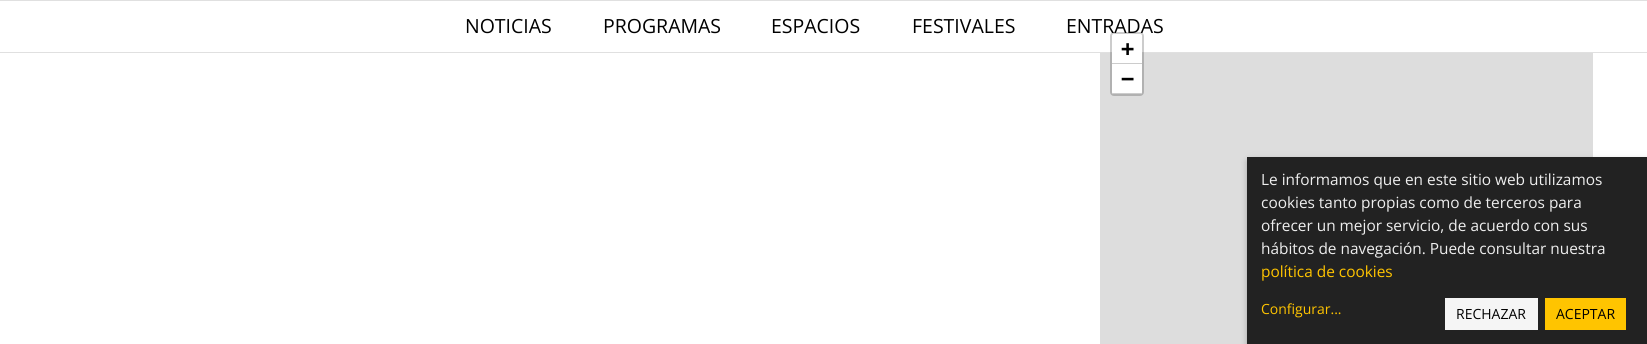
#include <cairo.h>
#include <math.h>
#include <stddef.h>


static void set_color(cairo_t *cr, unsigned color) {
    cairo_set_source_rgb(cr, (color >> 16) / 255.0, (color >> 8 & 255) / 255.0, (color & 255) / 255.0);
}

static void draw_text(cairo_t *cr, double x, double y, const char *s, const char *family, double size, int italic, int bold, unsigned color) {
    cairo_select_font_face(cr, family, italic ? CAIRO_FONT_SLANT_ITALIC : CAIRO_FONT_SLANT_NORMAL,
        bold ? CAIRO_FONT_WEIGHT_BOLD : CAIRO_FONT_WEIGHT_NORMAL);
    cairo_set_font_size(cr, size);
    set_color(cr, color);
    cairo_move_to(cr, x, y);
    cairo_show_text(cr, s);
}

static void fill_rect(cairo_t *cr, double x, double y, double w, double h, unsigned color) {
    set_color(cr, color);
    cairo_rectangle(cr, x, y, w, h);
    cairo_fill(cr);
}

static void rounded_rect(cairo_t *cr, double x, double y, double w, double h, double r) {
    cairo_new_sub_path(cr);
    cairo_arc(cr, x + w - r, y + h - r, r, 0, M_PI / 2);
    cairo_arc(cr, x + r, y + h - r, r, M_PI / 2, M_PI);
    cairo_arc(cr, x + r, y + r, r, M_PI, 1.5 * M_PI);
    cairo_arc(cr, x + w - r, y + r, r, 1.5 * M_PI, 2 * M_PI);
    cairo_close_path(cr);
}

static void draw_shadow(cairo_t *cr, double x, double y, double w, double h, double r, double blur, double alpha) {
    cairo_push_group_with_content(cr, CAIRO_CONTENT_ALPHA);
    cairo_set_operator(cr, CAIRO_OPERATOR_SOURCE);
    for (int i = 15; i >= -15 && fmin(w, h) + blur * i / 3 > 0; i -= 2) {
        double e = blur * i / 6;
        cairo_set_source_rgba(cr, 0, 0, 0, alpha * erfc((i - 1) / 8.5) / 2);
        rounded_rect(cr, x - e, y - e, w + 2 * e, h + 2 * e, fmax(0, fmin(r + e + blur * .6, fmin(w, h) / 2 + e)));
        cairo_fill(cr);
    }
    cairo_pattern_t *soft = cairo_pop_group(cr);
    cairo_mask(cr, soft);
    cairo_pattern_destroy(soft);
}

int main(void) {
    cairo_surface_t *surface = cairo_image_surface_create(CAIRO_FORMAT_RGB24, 1647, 344);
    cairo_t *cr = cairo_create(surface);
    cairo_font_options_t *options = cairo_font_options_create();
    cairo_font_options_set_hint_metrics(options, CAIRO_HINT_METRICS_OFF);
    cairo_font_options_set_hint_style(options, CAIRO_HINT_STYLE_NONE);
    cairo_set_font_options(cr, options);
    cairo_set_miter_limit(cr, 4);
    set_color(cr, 0xFFFFFF);
    cairo_paint(cr);
    fill_rect(cr, 0, 0, 1647, 1, 0xE0E0E0);
    fill_rect(cr, 0, 52, 1647, 1, 0xE0E0E0);
    draw_text(cr, 465, 33, "NOTICIAS", "Open Sans", 19.5, 0, 0, 0x000000);
    draw_text(cr, 603, 33, "PROGRAMAS", "Open Sans", 19.5, 0, 0, 0x000000);
    draw_text(cr, 771, 33, "ESPACIOS", "Open Sans", 19.5, 0, 0, 0x000000);
    draw_text(cr, 912, 33, "FESTIVALES", "Open Sans", 19.5, 0, 0, 0x000000);
    draw_text(cr, 1066, 33, "ENTRADAS", "Open Sans", 19.5, 0, 0, 0x000000);
    fill_rect(cr, 1100, 53, 493, 291, 0xDDDDDD);
    rounded_rect(cr, 1111, 33, 32, 62, 3);
    cairo_set_source_rgba(cr, 0, 0, 0, 0.2);
    cairo_stroke(cr);
    set_color(cr, 0xFFFFFF);
    cairo_new_path(cr);
    cairo_move_to(cr, 1114, 34);
    cairo_line_to(cr, 1140, 34);
    cairo_curve_to(cr, 1141, 34, 1142, 35, 1142, 36);
    cairo_line_to(cr, 1142, 64);
    cairo_line_to(cr, 1112, 64);
    cairo_line_to(cr, 1112, 36);
    cairo_curve_to(cr, 1112, 35, 1113, 34, 1114, 34);
    cairo_close_path(cr);
    cairo_fill(cr);
    fill_rect(cr, 1112, 63, 30, 1, 0xCCCCCC);
    draw_text(cr, 1121, 56, "+", "DejaVu Sans Mono", 22, 0, 1, 0x000000);
    set_color(cr, 0xFFFFFF);
    cairo_new_path(cr);
    cairo_move_to(cr, 1112, 64);
    cairo_line_to(cr, 1142, 64);
    cairo_line_to(cr, 1142, 92);
    cairo_curve_to(cr, 1142, 93, 1141, 94, 1140, 94);
    cairo_line_to(cr, 1114, 94);
    cairo_curve_to(cr, 1113, 94, 1112, 93, 1112, 92);
    cairo_close_path(cr);
    cairo_fill(cr);
    fill_rect(cr, 1113, 93, 28, 1, 0xCCCCCC);
    draw_text(cr, 1121, 86, "−", "DejaVu Sans Mono", 22, 0, 1, 0x000000);
    set_color(cr, 0x000000);
    draw_shadow(cr, 1252, 162, 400, 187, 0, 5, 0.19);
    draw_shadow(cr, 1247, 161, 400, 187, 0, 3, 0.2);
    fill_rect(cr, 1247, 157, 400, 187, 0x222222);
    draw_text(cr, 1261, 185, "Le informamos que en este sitio web utilizamos", "Open Sans", 15.4, 0, 0, 0xEEEEEE);
    draw_text(cr, 1261, 208, "cookies tanto propias como de terceros para", "Open Sans", 15.4, 0, 0, 0xEEEEEE);
    draw_text(cr, 1261, 231, "ofrecer un mejor servicio, de acuerdo con sus", "Open Sans", 15.4, 0, 0, 0xEEEEEE);
    draw_text(cr, 1261, 254, "hábitos de navegación. Puede consultar nuestra", "Open Sans", 15.4, 0, 0, 0xEEEEEE);
    draw_text(cr, 1261, 277, "política de cookies", "Open Sans", 15.4, 0, 0, 0xFFC400);
    draw_text(cr, 1261, 314, "Configurar...", "Open Sans", 14, 0, 0, 0xFFC400);
    fill_rect(cr, 1445, 298, 93, 32, 0xF5F5F5);
    draw_text(cr, 1456, 319, "RECHAZAR", "Open Sans", 14, 0, 0, 0x000000);
    fill_rect(cr, 1545, 298, 81, 32, 0xFFC400);
    draw_text(cr, 1556, 319, "ACEPTAR", "Open Sans", 14, 0, 0, 0x000000);
    cairo_surface_write_to_png(surface, "output.png");
    cairo_font_options_destroy(options);
    cairo_destroy(cr);
    cairo_surface_destroy(surface);
    return 0;
}
